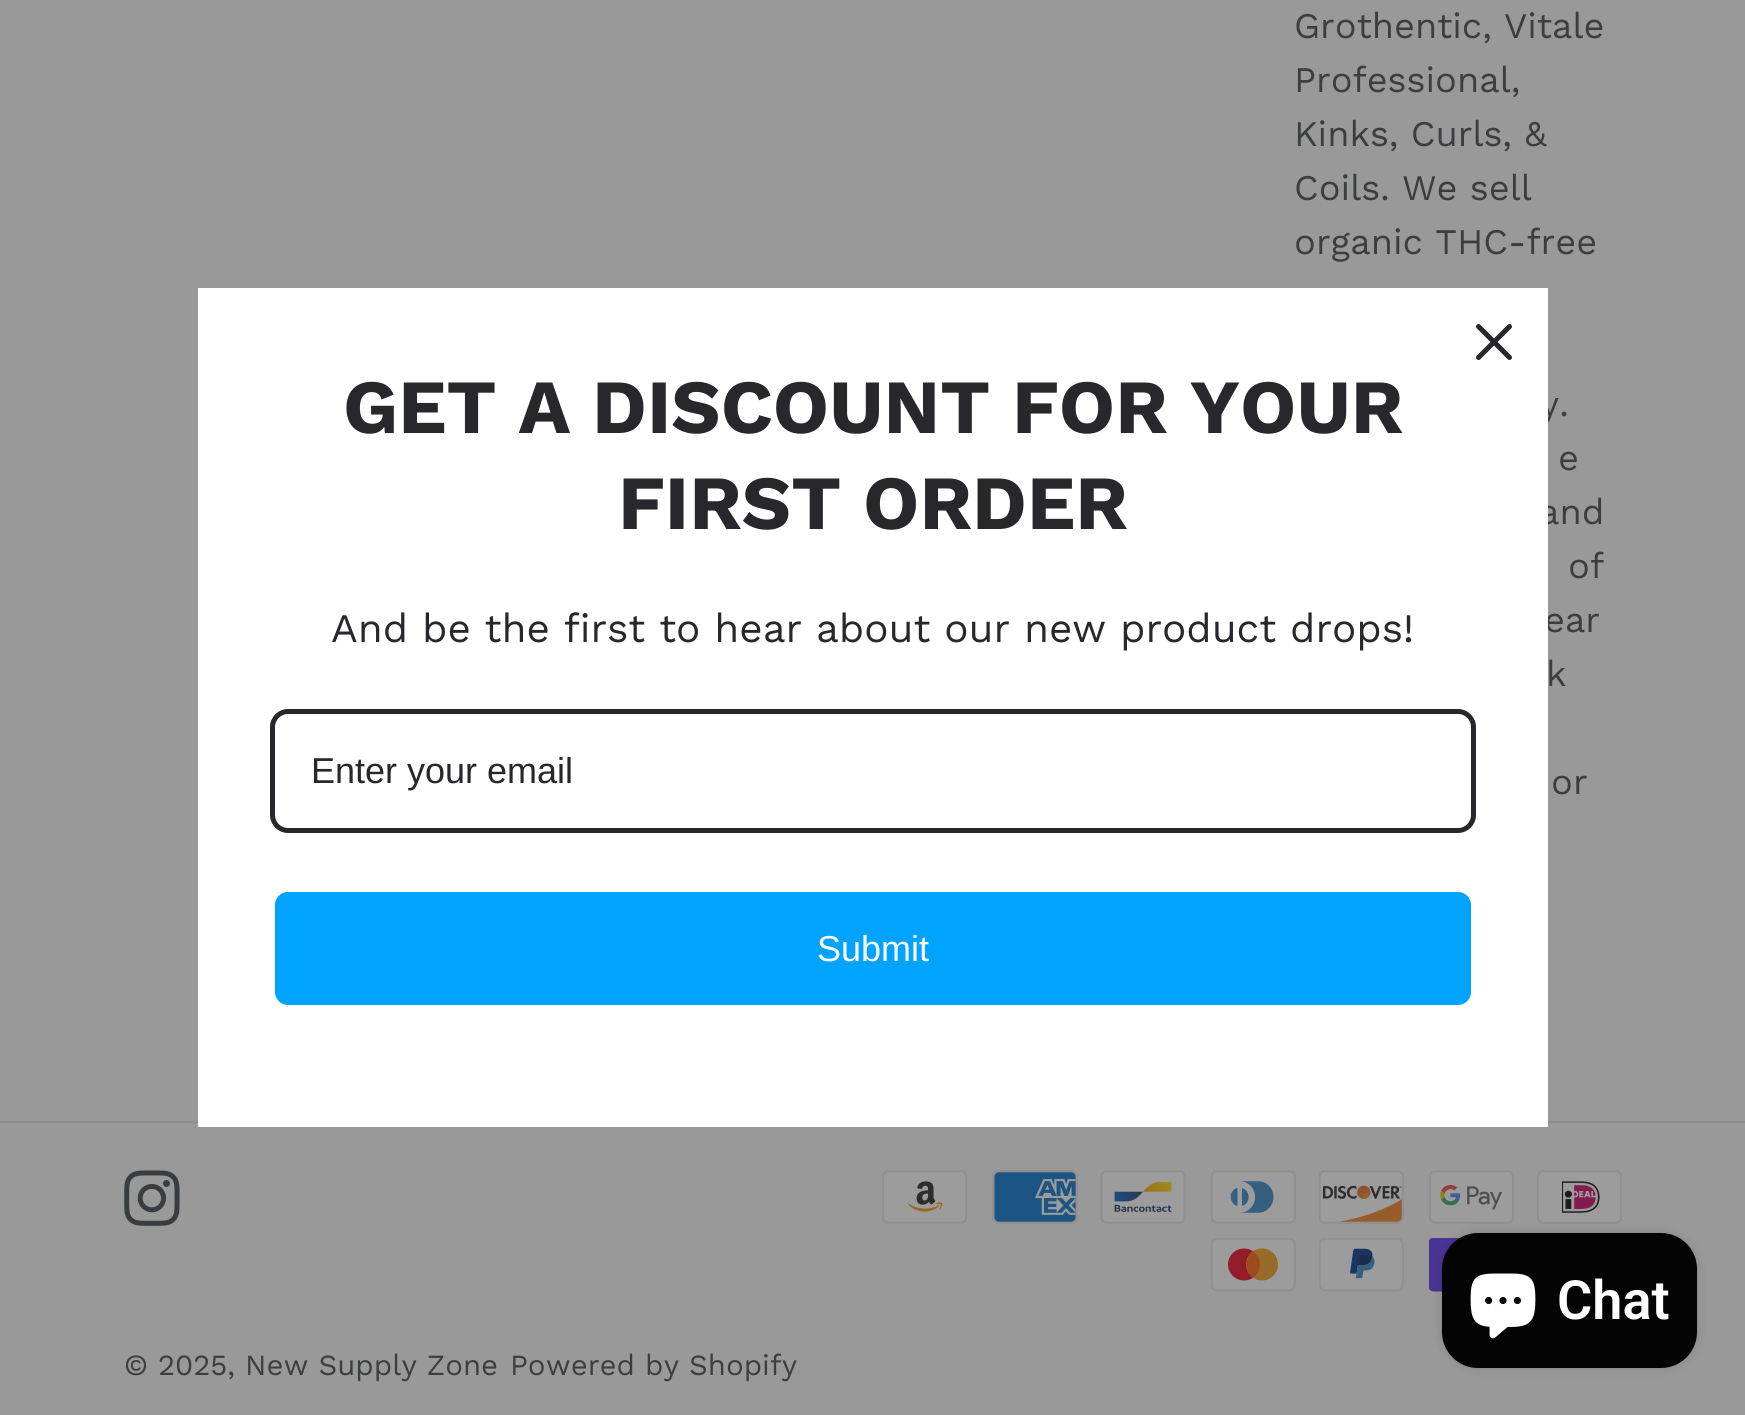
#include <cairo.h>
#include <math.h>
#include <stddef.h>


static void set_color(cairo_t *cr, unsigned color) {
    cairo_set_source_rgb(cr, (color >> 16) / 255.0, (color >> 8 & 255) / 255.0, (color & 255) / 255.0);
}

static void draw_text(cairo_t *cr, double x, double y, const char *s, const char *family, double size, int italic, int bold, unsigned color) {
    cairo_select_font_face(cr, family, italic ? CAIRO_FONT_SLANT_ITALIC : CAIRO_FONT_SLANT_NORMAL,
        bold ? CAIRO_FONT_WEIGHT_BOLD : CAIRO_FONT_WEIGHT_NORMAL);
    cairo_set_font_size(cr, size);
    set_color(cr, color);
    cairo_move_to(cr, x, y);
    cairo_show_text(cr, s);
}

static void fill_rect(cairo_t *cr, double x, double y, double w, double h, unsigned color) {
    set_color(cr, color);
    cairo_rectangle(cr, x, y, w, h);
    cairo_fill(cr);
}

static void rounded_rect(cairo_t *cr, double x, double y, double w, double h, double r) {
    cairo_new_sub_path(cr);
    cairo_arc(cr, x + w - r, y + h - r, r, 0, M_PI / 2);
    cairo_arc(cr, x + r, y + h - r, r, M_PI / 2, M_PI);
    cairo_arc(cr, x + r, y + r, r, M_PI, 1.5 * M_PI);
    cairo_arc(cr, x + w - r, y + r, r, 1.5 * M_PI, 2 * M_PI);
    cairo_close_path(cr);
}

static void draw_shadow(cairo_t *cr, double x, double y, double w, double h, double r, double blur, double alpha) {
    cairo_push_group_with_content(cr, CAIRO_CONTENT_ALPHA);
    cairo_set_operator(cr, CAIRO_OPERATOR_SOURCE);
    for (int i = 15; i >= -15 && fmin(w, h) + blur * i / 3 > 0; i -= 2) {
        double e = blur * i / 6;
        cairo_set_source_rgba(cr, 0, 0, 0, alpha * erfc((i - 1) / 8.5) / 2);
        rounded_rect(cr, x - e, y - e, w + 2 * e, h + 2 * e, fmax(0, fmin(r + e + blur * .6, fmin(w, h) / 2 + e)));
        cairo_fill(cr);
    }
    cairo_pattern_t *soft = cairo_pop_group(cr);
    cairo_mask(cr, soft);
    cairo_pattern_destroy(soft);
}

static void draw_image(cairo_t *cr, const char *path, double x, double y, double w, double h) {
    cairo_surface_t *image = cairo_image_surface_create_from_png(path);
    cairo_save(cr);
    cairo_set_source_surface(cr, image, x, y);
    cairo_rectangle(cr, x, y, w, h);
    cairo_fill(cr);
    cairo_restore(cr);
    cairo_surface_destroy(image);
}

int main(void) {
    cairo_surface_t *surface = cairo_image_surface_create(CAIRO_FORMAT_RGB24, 1745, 1415);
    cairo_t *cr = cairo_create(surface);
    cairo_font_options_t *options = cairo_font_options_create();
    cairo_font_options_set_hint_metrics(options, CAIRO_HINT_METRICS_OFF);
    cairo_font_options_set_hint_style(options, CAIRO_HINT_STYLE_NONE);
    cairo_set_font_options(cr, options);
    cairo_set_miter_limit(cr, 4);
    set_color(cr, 0x999999);
    cairo_paint(cr);
    draw_text(cr, 1294, 38, "Grothentic, Vitale", "Work Sans", 36, 0, 0, 0x3B3D3F);
    draw_text(cr, 1294, 92, "Professional,", "Work Sans", 36, 0, 0, 0x3B3D3F);
    draw_text(cr, 1294, 146, "Kinks, Curls, &", "Work Sans", 36, 0, 0, 0x3B3D3F);
    draw_text(cr, 1294, 200, "Coils. We sell", "Work Sans", 36, 0, 0, 0x3B3D3F);
    draw_text(cr, 1294, 254, "organic THC-free", "Work Sans", 36, 0, 0, 0x3B3D3F);
    draw_text(cr, 1540, 416, "y.", "Work Sans", 36, 0, 0, 0x3B3D3F);
    draw_text(cr, 1558, 470, "e", "Work Sans", 36, 0, 0, 0x3B3D3F);
    draw_text(cr, 1539, 524, "and", "Work Sans", 36, 0, 0, 0x3B3D3F);
    draw_text(cr, 1568, 578, "of", "Work Sans", 36, 0, 0, 0x3B3D3F);
    draw_text(cr, 1544, 632, "ear", "Work Sans", 36, 0, 0, 0x3B3D3F);
    draw_text(cr, 1546, 686, "k", "Work Sans", 36, 0, 0, 0x3B3D3F);
    draw_text(cr, 1551, 794, "or", "Work Sans", 36, 0, 0, 0x3B3D3F);
    fill_rect(cr, 0, 1121, 1745, 2, 0x8D8D8D);
    draw_image(cr, "assets/img1.png", 124, 1170, 56, 56);
    draw_image(cr, "assets/img2.png", 882, 1170, 86, 54);
    draw_image(cr, "assets/img3.png", 992, 1170, 86, 54);
    draw_image(cr, "assets/img4.png", 1100, 1170, 86, 54);
    draw_image(cr, "assets/img5.png", 1211, 1170, 85, 54);
    draw_image(cr, "assets/img6.png", 1319, 1170, 85, 54);
    draw_image(cr, "assets/img7.png", 1429, 1170, 85, 54);
    draw_image(cr, "assets/img8.png", 1537, 1170, 85, 54);
    draw_image(cr, "assets/img9.png", 1211, 1238, 85, 54);
    draw_image(cr, "assets/img10.png", 1319, 1238, 85, 54);
    draw_image(cr, "assets/img11.png", 1429, 1238, 31, 54);
    draw_text(cr, 124, 1375, "© 2025, New Supply Zone", "Work Sans", 29.25, 0, 0, 0x3B3D3F);
    draw_text(cr, 510, 1375, "Powered by Shopify", "Work Sans", 29.25, 0, 0, 0x3B3D3F);
    fill_rect(cr, 198, 288, 1350, 839, 0xFFFFFF);
    draw_image(cr, "assets/img12.png", 1476, 324, 36, 36);
    draw_text(cr, 343, 433, "GET A DISCOUNT FOR YOUR", "Work Sans", 76.5, 0, 1, 0x28272C);
    draw_text(cr, 618, 529, "FIRST ORDER", "Work Sans", 76.5, 0, 1, 0x28272C);
    draw_text(cr, 331, 642, "And be the first to hear about our new product drops!", "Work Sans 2", 40.5, 0, 0, 0x28272C);
    rounded_rect(cr, 272.5, 711.5, 1201, 119, 15.5);
    cairo_set_line_width(cr, 5);
    cairo_stroke(cr);
    draw_text(cr, 311, 783, "Enter your email", "Liberation Sans", 36, 0, 0, 0x28272C);
    set_color(cr, 0x00A3FF);
    rounded_rect(cr, 272.5, 889.5, 1201, 118, 15.5);
    cairo_fill_preserve(cr);
    set_color(cr, 0xFFFFFF);
    cairo_stroke(cr);
    draw_text(cr, 817, 961, "Submit", "Liberation Sans", 36, 0, 0, 0xFFFFFF);
    set_color(cr, 0x000000);
    draw_shadow(cr, 1442, 1233, 255, 135, 36, 5.5, 0.15);
    set_color(cr, 0x040404);
    rounded_rect(cr, 1442, 1233, 255, 135, 36);
    cairo_fill(cr);
    draw_image(cr, "assets/img13.png", 1470, 1273, 66, 66);
    draw_text(cr, 1557, 1319, "Chat", "Roboto SemiBold", 54, 0, 0, 0xFFFFFF);
    cairo_surface_write_to_png(surface, "output.png");
    cairo_font_options_destroy(options);
    cairo_destroy(cr);
    cairo_surface_destroy(surface);
    return 0;
}
